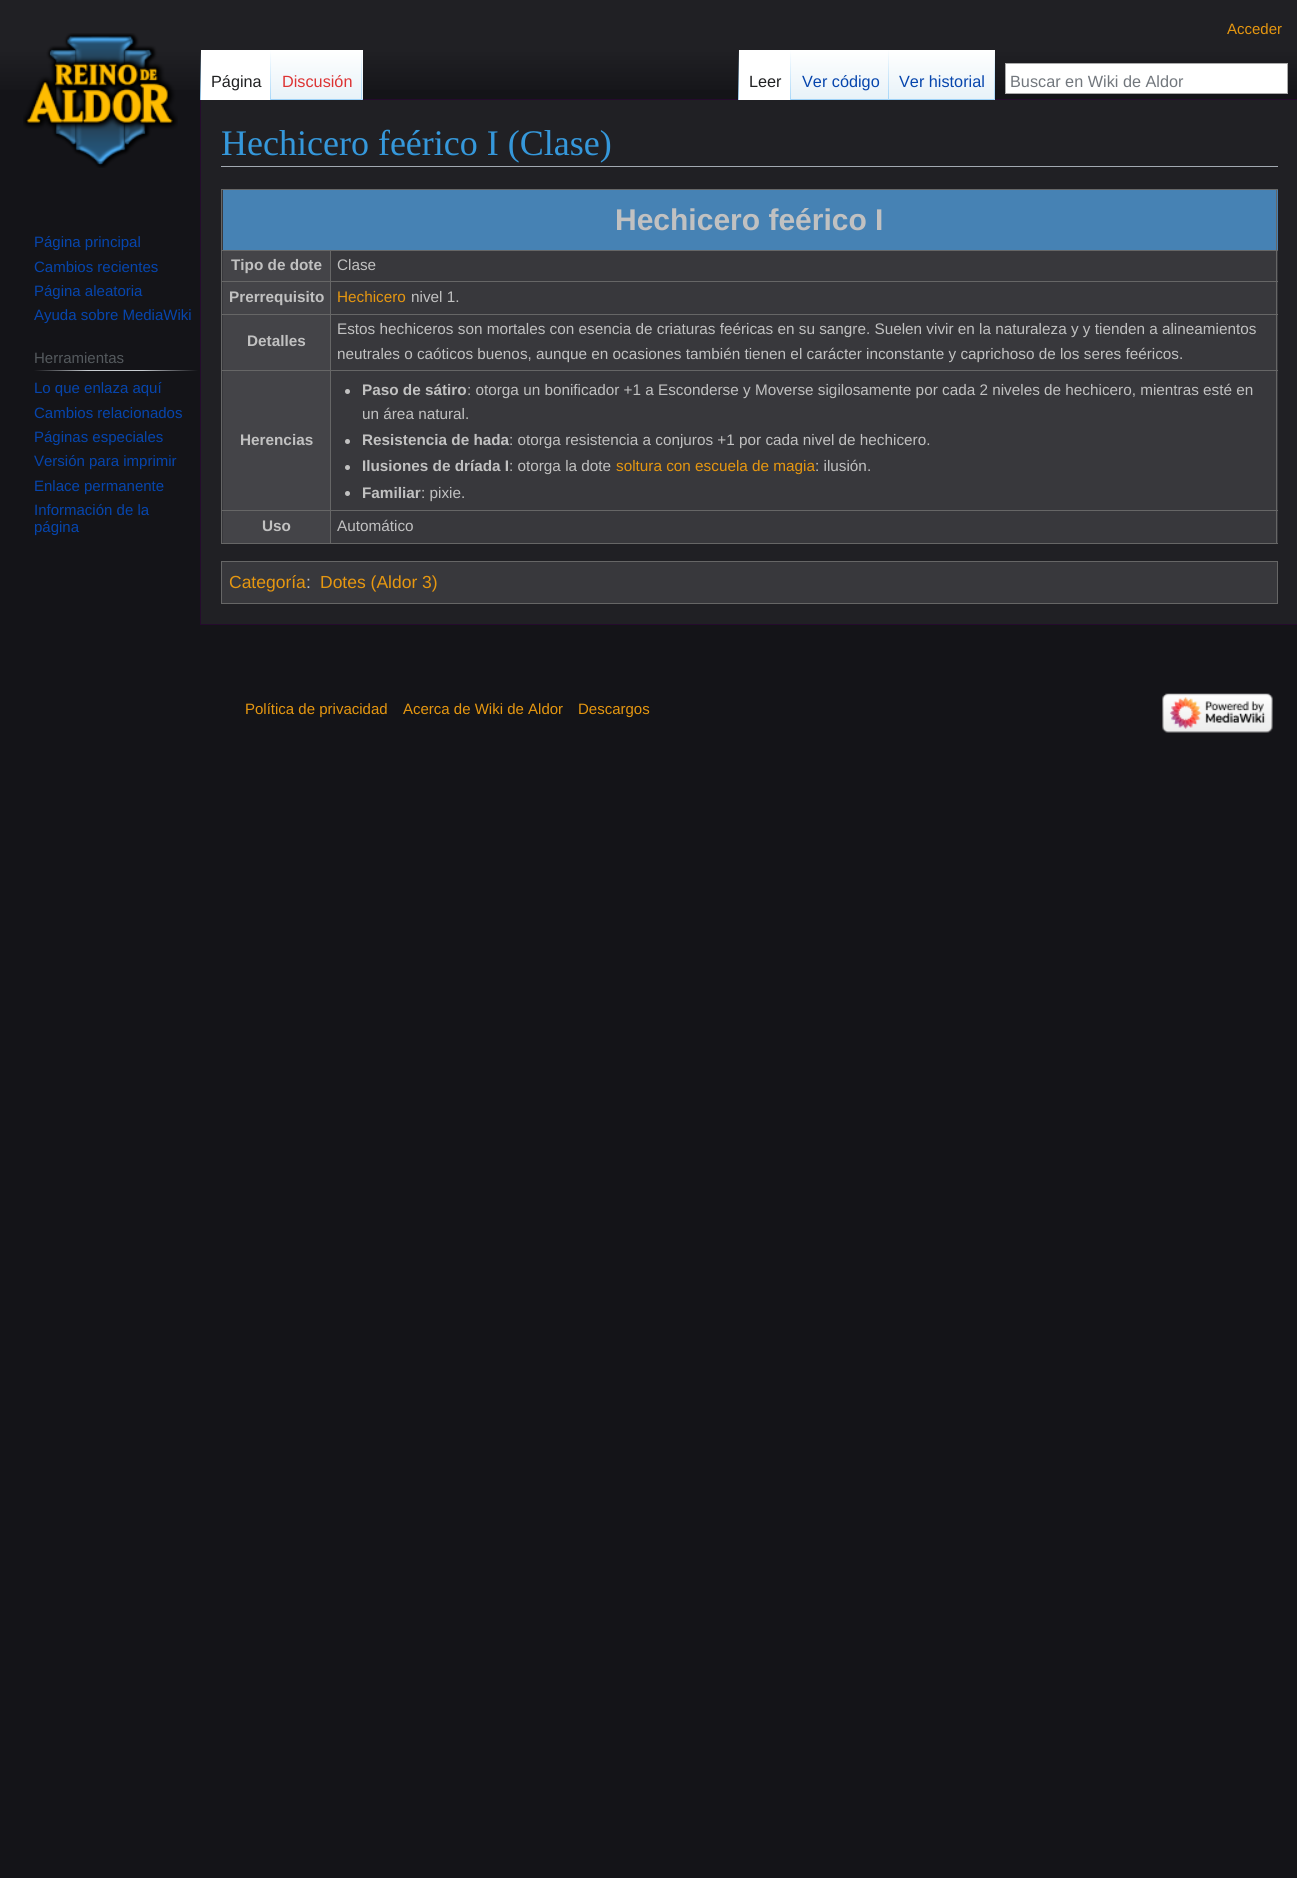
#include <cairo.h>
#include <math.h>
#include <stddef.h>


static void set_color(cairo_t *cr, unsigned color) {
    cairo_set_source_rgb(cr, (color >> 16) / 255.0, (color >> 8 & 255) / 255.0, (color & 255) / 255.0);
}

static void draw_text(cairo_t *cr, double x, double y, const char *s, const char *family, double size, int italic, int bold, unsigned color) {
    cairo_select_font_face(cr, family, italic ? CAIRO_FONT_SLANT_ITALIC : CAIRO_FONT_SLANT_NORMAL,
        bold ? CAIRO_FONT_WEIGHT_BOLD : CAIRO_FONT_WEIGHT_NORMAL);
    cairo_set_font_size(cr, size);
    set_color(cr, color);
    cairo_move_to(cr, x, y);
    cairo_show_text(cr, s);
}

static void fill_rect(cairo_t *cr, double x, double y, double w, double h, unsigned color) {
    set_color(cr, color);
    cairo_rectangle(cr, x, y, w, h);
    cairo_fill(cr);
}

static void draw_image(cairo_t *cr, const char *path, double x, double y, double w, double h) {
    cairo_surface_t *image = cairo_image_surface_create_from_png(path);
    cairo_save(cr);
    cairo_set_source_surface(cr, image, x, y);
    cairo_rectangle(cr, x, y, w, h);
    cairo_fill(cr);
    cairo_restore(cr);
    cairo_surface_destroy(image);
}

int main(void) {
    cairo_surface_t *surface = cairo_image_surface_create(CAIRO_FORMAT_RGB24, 1297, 1878);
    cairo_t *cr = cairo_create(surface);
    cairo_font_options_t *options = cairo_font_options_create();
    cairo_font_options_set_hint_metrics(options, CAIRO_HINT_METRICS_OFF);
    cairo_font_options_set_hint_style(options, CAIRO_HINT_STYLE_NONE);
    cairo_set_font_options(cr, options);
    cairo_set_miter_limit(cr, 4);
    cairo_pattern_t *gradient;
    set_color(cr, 0x141418);
    cairo_paint(cr);
    gradient = cairo_pattern_create_linear(649, 0, 649, 100);
    cairo_pattern_add_color_stop_rgba(gradient, 0.5, 0.125, 0.125, 0.141, 1);
    cairo_pattern_add_color_stop_rgba(gradient, 1, 0.078, 0.078, 0.094, 1);
    cairo_set_source(cr, gradient);
    cairo_pattern_destroy(gradient);
    cairo_rectangle(cr, 0, 0, 1297, 90);
    cairo_fill(cr);
    draw_text(cr, 1227, 34, "Acceder", "Liberation Sans", 15, 0, 0, 0xE69710);
    fill_rect(cr, 200, 624, 1097, 1, 0x250B2D);
    fill_rect(cr, 200, 99, 1, 526, 0x250B2D);
    gradient = cairo_pattern_create_linear(201, 50, 201, 100);
    cairo_pattern_add_color_stop_rgba(gradient, 0, 0.655, 0.843, 0.976, 0);
    cairo_pattern_add_color_stop_rgba(gradient, 1, 0.655, 0.843, 0.976, 1);
    cairo_set_source(cr, gradient);
    cairo_pattern_destroy(gradient);
    cairo_rectangle(cr, 200, 50, 1, 50);
    cairo_fill(cr);
    fill_rect(cr, 201, 50, 69, 50, 0xFFFFFF);
    gradient = cairo_pattern_create_linear(271, 50, 271, 100);
    cairo_pattern_add_color_stop_rgba(gradient, 0, 1, 1, 1, 1);
    cairo_pattern_add_color_stop_rgba(gradient, 1, 0.655, 0.843, 0.976, 1);
    cairo_set_source(cr, gradient);
    cairo_pattern_destroy(gradient);
    cairo_rectangle(cr, 270, 50, 1, 50);
    cairo_fill(cr);
    draw_text(cr, 211, 87, "Página", "Liberation Sans", 16.25, 0, 0, 0x202122);
    gradient = cairo_pattern_create_linear(317, 100, 317, 50);
    cairo_pattern_add_color_stop_rgba(gradient, 0, 0.467, 0.757, 0.965, 1);
    cairo_pattern_add_color_stop_rgba(gradient, 0.03, 0.91, 0.949, 0.973, 1);
    cairo_pattern_add_color_stop_rgba(gradient, 1, 1, 1, 1, 1);
    cairo_set_source(cr, gradient);
    cairo_pattern_destroy(gradient);
    cairo_rectangle(cr, 271, 50, 92, 50);
    cairo_fill(cr);
    gradient = cairo_pattern_create_linear(362, 50, 362, 100);
    cairo_pattern_add_color_stop_rgba(gradient, 0, 0.655, 0.843, 0.976, 0);
    cairo_pattern_add_color_stop_rgba(gradient, 1, 0.655, 0.843, 0.976, 1);
    cairo_set_source(cr, gradient);
    cairo_pattern_destroy(gradient);
    cairo_rectangle(cr, 361, 50, 1, 50);
    cairo_fill(cr);
    draw_text(cr, 282, 87, "Discusión", "Liberation Sans", 16.25, 0, 0, 0xDD3333);
    fill_rect(cr, 363, 99, 934, 1, 0x250B2D);
    gradient = cairo_pattern_create_linear(738, 50, 738, 100);
    cairo_pattern_add_color_stop_rgba(gradient, 0, 0.655, 0.843, 0.976, 0);
    cairo_pattern_add_color_stop_rgba(gradient, 1, 0.655, 0.843, 0.976, 1);
    cairo_set_source(cr, gradient);
    cairo_pattern_destroy(gradient);
    cairo_rectangle(cr, 738, 50, 1, 50);
    cairo_fill(cr);
    fill_rect(cr, 739, 50, 51, 50, 0xFFFFFF);
    gradient = cairo_pattern_create_linear(791, 50, 791, 100);
    cairo_pattern_add_color_stop_rgba(gradient, 0, 1, 1, 1, 1);
    cairo_pattern_add_color_stop_rgba(gradient, 1, 0.655, 0.843, 0.976, 1);
    cairo_set_source(cr, gradient);
    cairo_pattern_destroy(gradient);
    cairo_rectangle(cr, 790, 50, 1, 50);
    cairo_fill(cr);
    draw_text(cr, 749, 87, "Leer", "Liberation Sans", 16.25, 0, 0, 0x202122);
    gradient = cairo_pattern_create_linear(840, 100, 840, 50);
    cairo_pattern_add_color_stop_rgba(gradient, 0, 0.467, 0.757, 0.965, 1);
    cairo_pattern_add_color_stop_rgba(gradient, 0.03, 0.91, 0.949, 0.973, 1);
    cairo_pattern_add_color_stop_rgba(gradient, 1, 1, 1, 1, 1);
    cairo_set_source(cr, gradient);
    cairo_pattern_destroy(gradient);
    cairo_rectangle(cr, 791, 50, 98, 50);
    cairo_fill(cr);
    gradient = cairo_pattern_create_linear(888, 50, 888, 100);
    cairo_pattern_add_color_stop_rgba(gradient, 0, 0.655, 0.843, 0.976, 0);
    cairo_pattern_add_color_stop_rgba(gradient, 1, 0.655, 0.843, 0.976, 1);
    cairo_set_source(cr, gradient);
    cairo_pattern_destroy(gradient);
    cairo_rectangle(cr, 888, 50, 1, 50);
    cairo_fill(cr);
    draw_text(cr, 802, 87, "Ver código", "Liberation Sans", 16.25, 0, 0, 0x0645AD);
    gradient = cairo_pattern_create_linear(942, 100, 942, 50);
    cairo_pattern_add_color_stop_rgba(gradient, 0, 0.467, 0.757, 0.965, 1);
    cairo_pattern_add_color_stop_rgba(gradient, 0.03, 0.91, 0.949, 0.973, 1);
    cairo_pattern_add_color_stop_rgba(gradient, 1, 1, 1, 1, 1);
    cairo_set_source(cr, gradient);
    cairo_pattern_destroy(gradient);
    cairo_rectangle(cr, 889, 50, 106, 50);
    cairo_fill(cr);
    gradient = cairo_pattern_create_linear(994, 50, 994, 100);
    cairo_pattern_add_color_stop_rgba(gradient, 0, 0.655, 0.843, 0.976, 0);
    cairo_pattern_add_color_stop_rgba(gradient, 1, 0.655, 0.843, 0.976, 1);
    cairo_set_source(cr, gradient);
    cairo_pattern_destroy(gradient);
    cairo_rectangle(cr, 994, 50, 1, 50);
    cairo_fill(cr);
    draw_text(cr, 899, 87, "Ver historial", "Liberation Sans", 16.25, 0, 0, 0x0645AD);
    set_color(cr, 0xFFFFFF);
    cairo_rectangle(cr, 1005.5, 63.5, 282, 30);
    cairo_fill_preserve(cr);
    set_color(cr, 0xAAAAAA);
    cairo_set_line_width(cr, 1);
    cairo_stroke(cr);
    draw_text(cr, 1010, 87, "Buscar en Wiki de Aldor", "Liberation Sans", 16.25, 0, 0, 0x72777D);
    draw_image(cr, "assets/img1.png", 23, 33, 155, 135);
    draw_text(cr, 34, 247, "Página principal", "Liberation Sans", 15, 0, 0, 0x0645AD);
    draw_text(cr, 34, 272, "Cambios recientes", "Liberation Sans", 15, 0, 0, 0x0645AD);
    draw_text(cr, 34, 296, "Página aleatoria", "Liberation Sans", 15, 0, 0, 0x0645AD);
    draw_text(cr, 34, 320, "Ayuda sobre MediaWiki", "Liberation Sans", 15, 0, 0, 0x0645AD);
    gradient = cairo_pattern_create_linear(34, 371, 198, 371);
    cairo_pattern_add_color_stop_rgba(gradient, 0, 0.078, 0.078, 0.094, 1);
    cairo_pattern_add_color_stop_rgba(gradient, 0.33, 0.784, 0.8, 0.82, 1);
    cairo_pattern_add_color_stop_rgba(gradient, 0.66, 0.784, 0.8, 0.82, 1);
    cairo_pattern_add_color_stop_rgba(gradient, 1, 0.078, 0.078, 0.094, 1);
    cairo_set_source(cr, gradient);
    cairo_pattern_destroy(gradient);
    cairo_rectangle(cr, 34, 370, 164, 1);
    cairo_fill(cr);
    draw_text(cr, 34, 363, "Herramientas", "Liberation Sans", 15, 0, 0, 0x54595D);
    draw_text(cr, 34, 393, "Lo que enlaza aquí", "Liberation Sans", 15, 0, 0, 0x0645AD);
    draw_text(cr, 34, 418, "Cambios relacionados", "Liberation Sans", 15, 0, 0, 0x0645AD);
    draw_text(cr, 34, 442, "Páginas especiales", "Liberation Sans", 15, 0, 0, 0x0645AD);
    draw_text(cr, 34, 466, "Versión para imprimir", "Liberation Sans", 15, 0, 0, 0x0645AD);
    draw_text(cr, 34, 491, "Enlace permanente", "Liberation Sans", 15, 0, 0, 0x0645AD);
    draw_text(cr, 34, 515, "Información de la", "Liberation Sans", 15, 0, 0, 0x0645AD);
    draw_text(cr, 34, 532, "página", "Liberation Sans", 15, 0, 0, 0x0645AD);
    fill_rect(cr, 201, 100, 1096, 524, 0x202024);
    fill_rect(cr, 221, 166, 1057, 1, 0xA2A9B1);
    draw_text(cr, 221, 155, "Hechicero feérico I (Clase)", "Liberation Serif", 36, 0, 0, 0x3598DB);
    fill_rect(cr, 222, 190, 1056, 353, 0x38383C);
    fill_rect(cr, 221, 189, 1057, 1, 0x666666);
    fill_rect(cr, 223, 190, 1055, 60, 0x4682B4);
    fill_rect(cr, 1276, 189, 1, 355, 0x666666);
    fill_rect(cr, 221, 543, 1057, 1, 0x666666);
    fill_rect(cr, 221, 189, 1, 355, 0x666666);
    draw_text(cr, 615, 230, "Hechicero feérico I", "Liberation Sans", 30, 0, 1, 0xC1C1C1);
    fill_rect(cr, 223, 251, 107, 63, 0x444448);
    fill_rect(cr, 330, 250, 948, 1, 0x666666);
    fill_rect(cr, 330, 281, 948, 1, 0x666666);
    fill_rect(cr, 330, 314, 948, 1, 0x666666);
    fill_rect(cr, 330, 370, 948, 1, 0x666666);
    fill_rect(cr, 330, 510, 948, 1, 0x666666);
    fill_rect(cr, 330, 510, 1, 34, 0x666666);
    fill_rect(cr, 221, 510, 110, 1, 0x666666);
    fill_rect(cr, 330, 370, 1, 141, 0x666666);
    fill_rect(cr, 221, 370, 110, 1, 0x666666);
    fill_rect(cr, 330, 314, 1, 57, 0x666666);
    fill_rect(cr, 221, 314, 110, 1, 0x666666);
    fill_rect(cr, 330, 281, 1, 34, 0x666666);
    fill_rect(cr, 221, 281, 110, 1, 0x666666);
    fill_rect(cr, 330, 250, 1, 33, 0x666666);
    fill_rect(cr, 221, 250, 110, 1, 0x666666);
    draw_text(cr, 231, 270, "Tipo de dote", "Liberation Sans", 15.3, 0, 1, 0xC1C1C1);
    draw_text(cr, 337, 270, "Clase", "Liberation Sans", 15.3, 0, 0, 0xC1C1C1);
    draw_text(cr, 229, 302, "Prerrequisito", "Liberation Sans", 15.3, 0, 1, 0xC1C1C1);
    draw_text(cr, 337, 302, "Hechicero", "Liberation Sans", 15.3, 0, 0, 0xE69710);
    draw_text(cr, 411, 302, "nivel 1.", "Liberation Sans", 15.3, 0, 0, 0xC1C1C1);
    fill_rect(cr, 223, 315, 107, 55, 0x444448);
    draw_text(cr, 247, 346, "Detalles", "Liberation Sans", 15.3, 0, 1, 0xC1C1C1);
    draw_text(cr, 337, 334, "Estos hechiceros son mortales con esencia de criaturas feéricas en su sangre. Suelen vivir en la naturaleza y y tienden a alineamientos", "Liberation Sans", 15.3, 0, 0, 0xC1C1C1);
    draw_text(cr, 337, 359, "neutrales o caóticos buenos, aunque en ocasiones también tienen el carácter inconstante y caprichoso de los seres feéricos.", "Liberation Sans", 15.3, 0, 0, 0xC1C1C1);
    fill_rect(cr, 223, 371, 107, 139, 0x444448);
    draw_text(cr, 240, 445, "Herencias", "Liberation Sans", 15.3, 0, 1, 0xC1C1C1);
    cairo_new_path(cr);
    cairo_arc(cr, 347.5, 391.5, 2.5, 0, 2 * M_PI);
    cairo_fill(cr);
    draw_text(cr, 362, 395, "Paso de sátiro", "Liberation Sans", 15.3, 0, 1, 0xC1C1C1);
    draw_text(cr, 467, 395, ": otorga un bonificador +1 a Esconderse y Moverse sigilosamente por cada 2 niveles de hechicero, mientras esté en", "Liberation Sans", 15.3, 0, 0, 0xC1C1C1);
    draw_text(cr, 362, 419, "un área natural.", "Liberation Sans", 15.3, 0, 0, 0xC1C1C1);
    cairo_new_path(cr);
    cairo_arc(cr, 347.5, 441.5, 2.5, 0, 2 * M_PI);
    cairo_fill(cr);
    draw_text(cr, 362, 445, "Resistencia de hada", "Liberation Sans", 15.3, 0, 1, 0xC1C1C1);
    draw_text(cr, 509, 445, ": otorga resistencia a conjuros +1 por cada nivel de hechicero.", "Liberation Sans", 15.3, 0, 0, 0xC1C1C1);
    cairo_new_path(cr);
    cairo_arc(cr, 347.5, 467.5, 2.5, 0, 2 * M_PI);
    cairo_fill(cr);
    draw_text(cr, 362, 471, "Ilusiones de dríada I", "Liberation Sans", 15.3, 0, 1, 0xC1C1C1);
    draw_text(cr, 509, 471, ": otorga la dote", "Liberation Sans", 15.3, 0, 0, 0xC1C1C1);
    draw_text(cr, 616, 471, "soltura con escuela de magia", "Liberation Sans", 15.3, 0, 0, 0xE69710);
    draw_text(cr, 815, 471, ": ilusión.", "Liberation Sans", 15.3, 0, 0, 0xC1C1C1);
    cairo_new_path(cr);
    cairo_arc(cr, 347.5, 493.5, 2.5, 0, 2 * M_PI);
    cairo_fill(cr);
    draw_text(cr, 362, 498, "Familiar", "Liberation Sans", 15.3, 0, 1, 0xC1C1C1);
    draw_text(cr, 421, 498, ": pixie.", "Liberation Sans", 15.3, 0, 0, 0xC1C1C1);
    fill_rect(cr, 223, 511, 107, 32, 0x444448);
    draw_text(cr, 262, 531, "Uso", "Liberation Sans", 15.3, 0, 1, 0xC1C1C1);
    draw_text(cr, 337, 531, "Automático", "Liberation Sans", 15.3, 0, 0, 0xC1C1C1);
    set_color(cr, 0x38383C);
    cairo_rectangle(cr, 221.5, 561.5, 1056, 42);
    cairo_fill_preserve(cr);
    set_color(cr, 0x666666);
    cairo_stroke(cr);
    draw_text(cr, 229, 588, "Categoría", "Liberation Sans", 17.5, 0, 0, 0xE69710);
    draw_text(cr, 306, 588, ":", "Liberation Sans", 17.5, 0, 0, 0xC1C1C1);
    draw_text(cr, 320, 588, "Dotes (Aldor 3)", "Liberation Sans", 17.5, 0, 0, 0xE69710);
    draw_text(cr, 245, 714, "Política de privacidad", "Liberation Sans", 15, 0, 0, 0xE69710);
    draw_text(cr, 403, 714, "Acerca de Wiki de Aldor", "Liberation Sans", 15, 0, 0, 0xE69710);
    draw_text(cr, 578, 714, "Descargos", "Liberation Sans", 15, 0, 0, 0xE69710);
    draw_image(cr, "assets/img2.png", 1162, 693, 111, 40);
    cairo_surface_write_to_png(surface, "output.png");
    cairo_font_options_destroy(options);
    cairo_destroy(cr);
    cairo_surface_destroy(surface);
    return 0;
}
